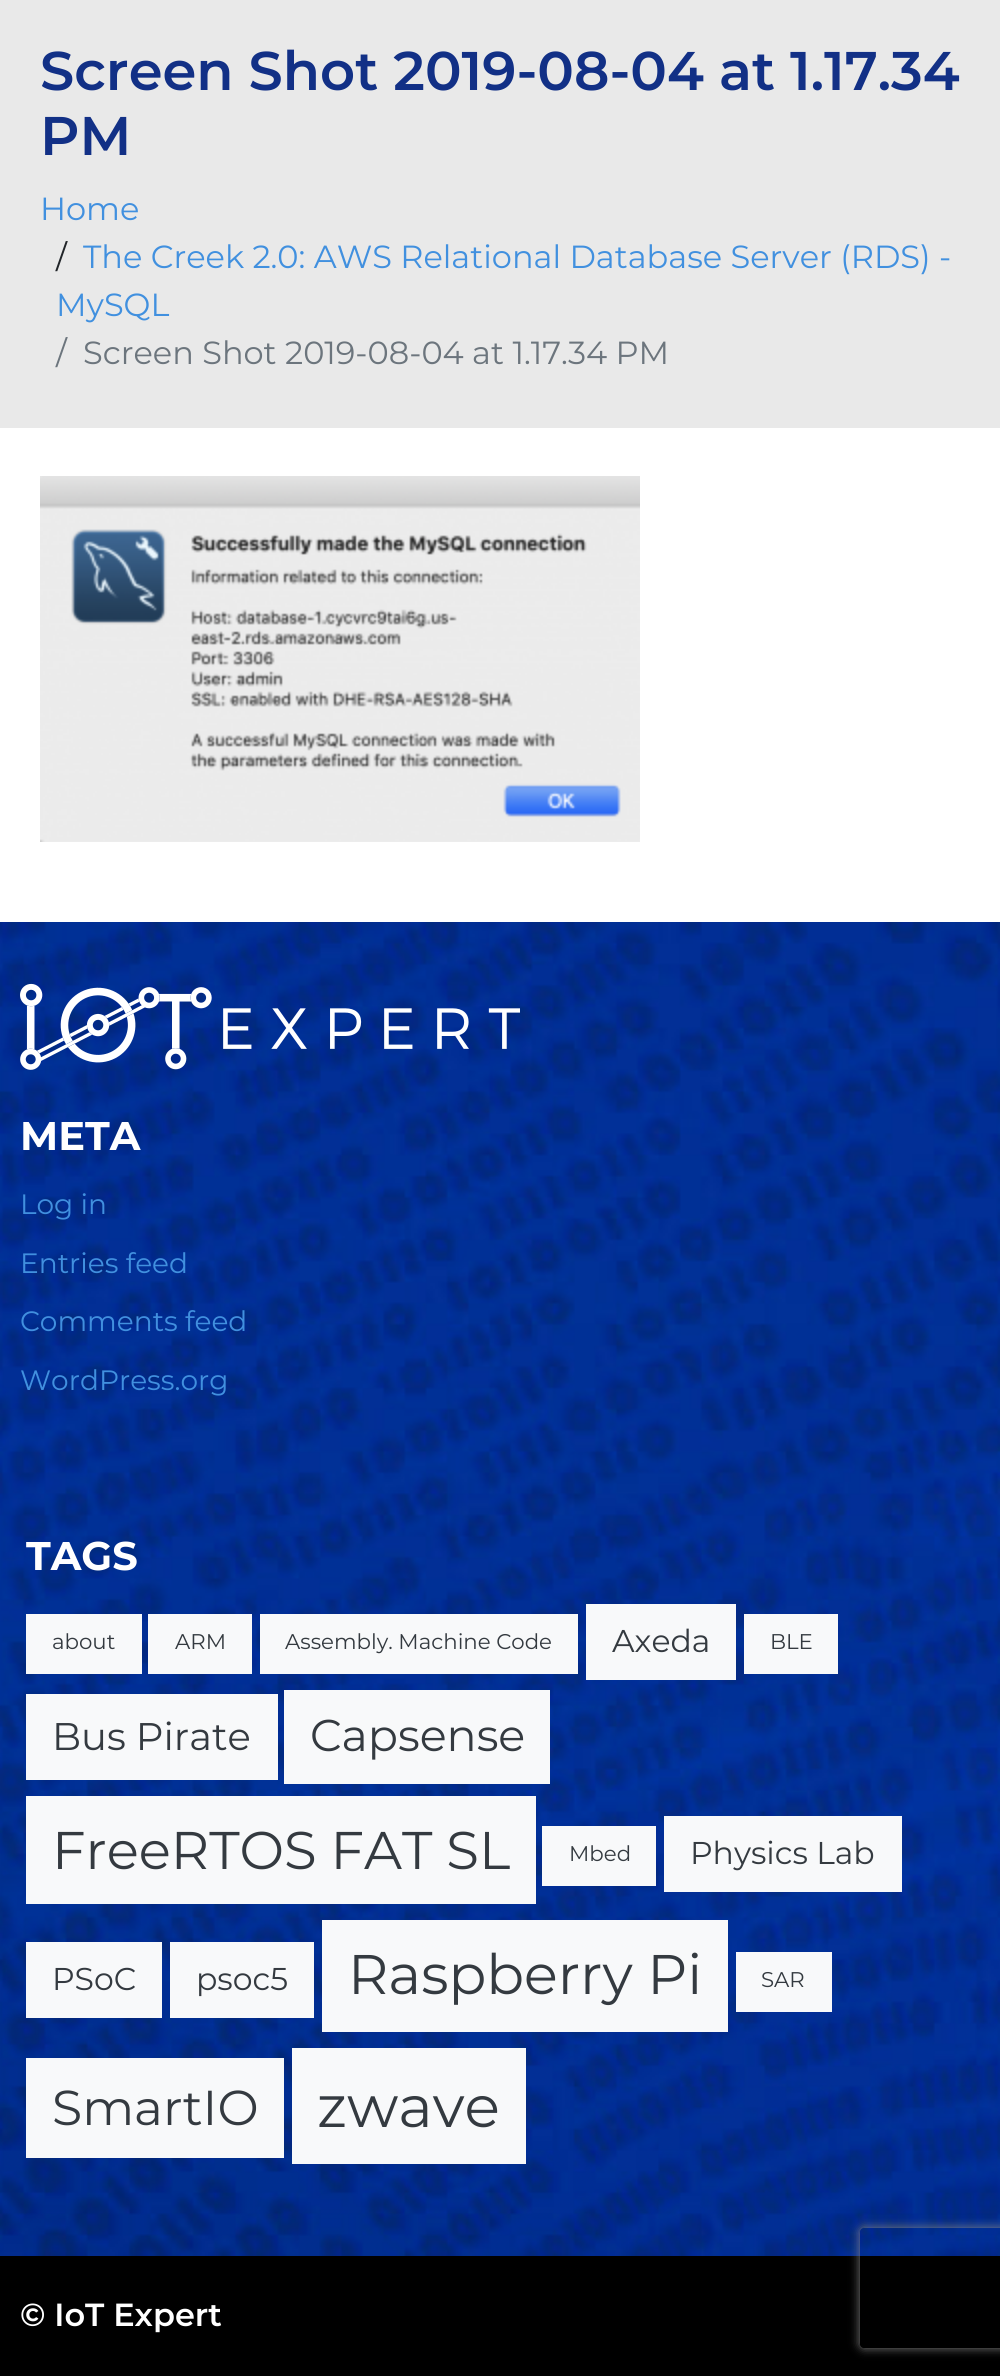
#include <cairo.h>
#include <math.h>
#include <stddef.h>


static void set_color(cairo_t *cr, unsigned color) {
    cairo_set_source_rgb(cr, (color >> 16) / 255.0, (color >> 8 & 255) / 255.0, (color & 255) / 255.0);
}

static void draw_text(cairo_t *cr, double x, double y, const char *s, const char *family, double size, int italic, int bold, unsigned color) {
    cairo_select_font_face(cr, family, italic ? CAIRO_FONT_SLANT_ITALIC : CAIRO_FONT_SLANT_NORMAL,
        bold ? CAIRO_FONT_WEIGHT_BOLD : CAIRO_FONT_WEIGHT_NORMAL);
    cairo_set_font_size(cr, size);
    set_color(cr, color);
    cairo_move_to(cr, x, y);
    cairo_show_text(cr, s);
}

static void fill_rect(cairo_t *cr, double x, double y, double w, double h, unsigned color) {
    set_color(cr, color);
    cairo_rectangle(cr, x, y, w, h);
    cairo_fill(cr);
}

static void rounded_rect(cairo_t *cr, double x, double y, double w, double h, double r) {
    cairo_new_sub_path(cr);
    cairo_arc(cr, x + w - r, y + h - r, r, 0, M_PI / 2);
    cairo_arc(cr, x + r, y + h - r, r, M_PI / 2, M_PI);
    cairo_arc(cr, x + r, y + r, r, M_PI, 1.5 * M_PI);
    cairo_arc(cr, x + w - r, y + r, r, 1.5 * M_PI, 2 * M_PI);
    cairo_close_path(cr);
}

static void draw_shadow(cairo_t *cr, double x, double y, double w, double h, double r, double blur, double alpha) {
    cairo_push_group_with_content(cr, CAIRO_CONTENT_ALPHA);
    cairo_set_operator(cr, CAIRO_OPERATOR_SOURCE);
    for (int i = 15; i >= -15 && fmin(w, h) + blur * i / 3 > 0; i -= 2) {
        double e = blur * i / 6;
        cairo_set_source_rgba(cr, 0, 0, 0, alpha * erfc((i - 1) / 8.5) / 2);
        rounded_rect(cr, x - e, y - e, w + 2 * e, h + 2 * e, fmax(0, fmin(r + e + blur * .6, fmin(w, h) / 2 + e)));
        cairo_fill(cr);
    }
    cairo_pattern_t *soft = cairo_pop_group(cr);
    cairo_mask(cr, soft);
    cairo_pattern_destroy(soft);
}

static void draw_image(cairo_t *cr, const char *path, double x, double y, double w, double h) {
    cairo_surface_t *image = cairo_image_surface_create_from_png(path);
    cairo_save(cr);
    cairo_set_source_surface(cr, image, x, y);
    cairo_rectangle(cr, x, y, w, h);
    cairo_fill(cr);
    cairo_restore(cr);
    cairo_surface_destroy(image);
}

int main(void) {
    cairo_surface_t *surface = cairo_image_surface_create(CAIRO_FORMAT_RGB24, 1000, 2376);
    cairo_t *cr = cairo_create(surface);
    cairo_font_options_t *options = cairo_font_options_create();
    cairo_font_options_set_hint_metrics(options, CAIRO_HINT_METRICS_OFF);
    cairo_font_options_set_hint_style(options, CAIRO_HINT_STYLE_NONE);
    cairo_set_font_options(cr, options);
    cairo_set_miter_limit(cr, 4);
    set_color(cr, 0xFFFFFF);
    cairo_paint(cr);
    fill_rect(cr, 0, 0, 1000, 428, 0xE9E9E9);
    draw_text(cr, 40, 90, "Screen Shot 2019-08-04 at 1.17.34", "Montserrat SemiBold", 54.4, 0, 0, 0x123086);
    draw_text(cr, 40, 155, "PM", "Montserrat SemiBold", 54.4, 0, 0, 0x123086);
    draw_text(cr, 40, 220, "Home", "Montserrat", 32, 0, 0, 0x4190DF);
    draw_text(cr, 56, 268, "/", "Montserrat", 32, 0, 0, 0x212529);
    draw_text(cr, 83, 268, "The Creek 2.0: AWS Relational Database Server (RDS) -", "Montserrat", 32, 0, 0, 0x4190DF);
    draw_text(cr, 56, 316, "MySQL", "Montserrat", 32, 0, 0, 0x4190DF);
    draw_text(cr, 56, 364, "/", "Montserrat", 32, 0, 0, 0x6C757D);
    draw_text(cr, 83, 364, "Screen Shot 2019-08-04 at 1.17.34 PM", "Montserrat", 32, 0, 0, 0x6C757D);
    draw_image(cr, "assets/img1.png", 40, 476, 600, 366);
    draw_image(cr, "assets/img2.png", 0, 922, 1000, 1334);
    draw_image(cr, "assets/img3.png", 20, 983, 500, 87);
    draw_text(cr, 20, 1150, "META", "Montserrat", 40, 0, 1, 0xFFFFFF);
    draw_text(cr, 20, 1214, "Log in", "Montserrat", 28, 0, 0, 0x4190DF);
    draw_text(cr, 20, 1273, "Entries feed", "Montserrat", 28, 0, 0, 0x4190DF);
    draw_text(cr, 20, 1331, "Comments feed", "Montserrat", 28, 0, 0, 0x4190DF);
    draw_text(cr, 20, 1390, "WordPress.org", "Montserrat", 28, 0, 0, 0x4190DF);
    draw_text(cr, 26, 1570, "TAGS", "Montserrat", 40, 0, 1, 0xFFFFFF);
    fill_rect(cr, 26, 1614, 116, 60, 0xF8F9FA);
    draw_text(cr, 52, 1649, "about", "Montserrat", 21.3, 0, 0, 0x343A40);
    fill_rect(cr, 148, 1614, 104, 60, 0xF8F9FA);
    draw_text(cr, 175, 1649, "ARM", "Montserrat", 21.3, 0, 0, 0x343A40);
    fill_rect(cr, 260, 1614, 318, 60, 0xF8F9FA);
    draw_text(cr, 285, 1649, "Assembly. Machine Code", "Montserrat", 21.3, 0, 0, 0x343A40);
    fill_rect(cr, 586, 1604, 150, 76, 0xF8F9FA);
    draw_text(cr, 612, 1652, "Axeda", "Montserrat", 31.5, 0, 0, 0x343A40);
    fill_rect(cr, 744, 1614, 94, 60, 0xF8F9FA);
    draw_text(cr, 770, 1649, "BLE", "Montserrat", 21.3, 0, 0, 0x343A40);
    fill_rect(cr, 26, 1694, 252, 86, 0xF8F9FA);
    draw_text(cr, 52, 1750, "Bus Pirate", "Montserrat", 38.5, 0, 0, 0x343A40);
    fill_rect(cr, 284, 1690, 266, 94, 0xF8F9FA);
    draw_text(cr, 310, 1751, "Capsense", "Montserrat", 44.5, 0, 0, 0x343A40);
    fill_rect(cr, 26, 1796, 510, 108, 0xF8F9FA);
    draw_text(cr, 52, 1869, "FreeRTOS FAT SL", "Montserrat", 53, 0, 0, 0x343A40);
    fill_rect(cr, 542, 1826, 114, 60, 0xF8F9FA);
    draw_text(cr, 569, 1861, "Mbed", "Montserrat", 21.3, 0, 0, 0x343A40);
    fill_rect(cr, 664, 1816, 238, 76, 0xF8F9FA);
    draw_text(cr, 690, 1864, "Physics Lab", "Montserrat", 31.5, 0, 0, 0x343A40);
    fill_rect(cr, 26, 1942, 136, 76, 0xF8F9FA);
    draw_text(cr, 52, 1990, "PSoC", "Montserrat", 31.5, 0, 0, 0x343A40);
    fill_rect(cr, 170, 1942, 144, 76, 0xF8F9FA);
    draw_text(cr, 196, 1990, "psoc5", "Montserrat", 31.5, 0, 0, 0x343A40);
    fill_rect(cr, 322, 1920, 406, 112, 0xF8F9FA);
    draw_text(cr, 348, 1994, "Raspberry Pi", "Montserrat", 55.75, 0, 0, 0x343A40);
    fill_rect(cr, 736, 1952, 96, 60, 0xF8F9FA);
    draw_text(cr, 761, 1987, "SAR", "Montserrat", 21.3, 0, 0, 0x343A40);
    fill_rect(cr, 26, 2058, 258, 100, 0xF8F9FA);
    draw_text(cr, 52, 2125, "SmartIO", "Montserrat", 49, 0, 0, 0x343A40);
    fill_rect(cr, 292, 2048, 234, 116, 0xF8F9FA);
    draw_text(cr, 317, 2127, "zwave", "Montserrat", 58.5, 0, 0, 0x343A40);
    fill_rect(cr, 0, 2256, 1000, 120, 0x000000);
    draw_text(cr, 20, 2326, "© IoT Expert", "Montserrat SemiBold", 32, 0, 0, 0xFFFFFF);
    cairo_save(cr);
    cairo_set_fill_rule(cr, CAIRO_FILL_RULE_EVEN_ODD);
    cairo_new_path(cr);
    cairo_move_to(cr, 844, 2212);
    cairo_line_to(cr, 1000, 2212);
    cairo_line_to(cr, 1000, 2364);
    cairo_line_to(cr, 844, 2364);
    cairo_close_path(cr);
    cairo_move_to(cr, 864, 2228);
    cairo_line_to(cr, 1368, 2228);
    cairo_curve_to(cr, 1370, 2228, 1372, 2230, 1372, 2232);
    cairo_line_to(cr, 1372, 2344);
    cairo_curve_to(cr, 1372, 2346, 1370, 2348, 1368, 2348);
    cairo_line_to(cr, 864, 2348);
    cairo_curve_to(cr, 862, 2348, 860, 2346, 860, 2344);
    cairo_line_to(cr, 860, 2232);
    cairo_curve_to(cr, 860, 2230, 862, 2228, 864, 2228);
    cairo_close_path(cr);
    cairo_clip(cr);
    set_color(cr, 0x808080);
    draw_shadow(cr, 860, 2228, 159, 120, 4, 5, 1);
    cairo_restore(cr);
    cairo_surface_write_to_png(surface, "output.png");
    cairo_font_options_destroy(options);
    cairo_destroy(cr);
    cairo_surface_destroy(surface);
    return 0;
}
